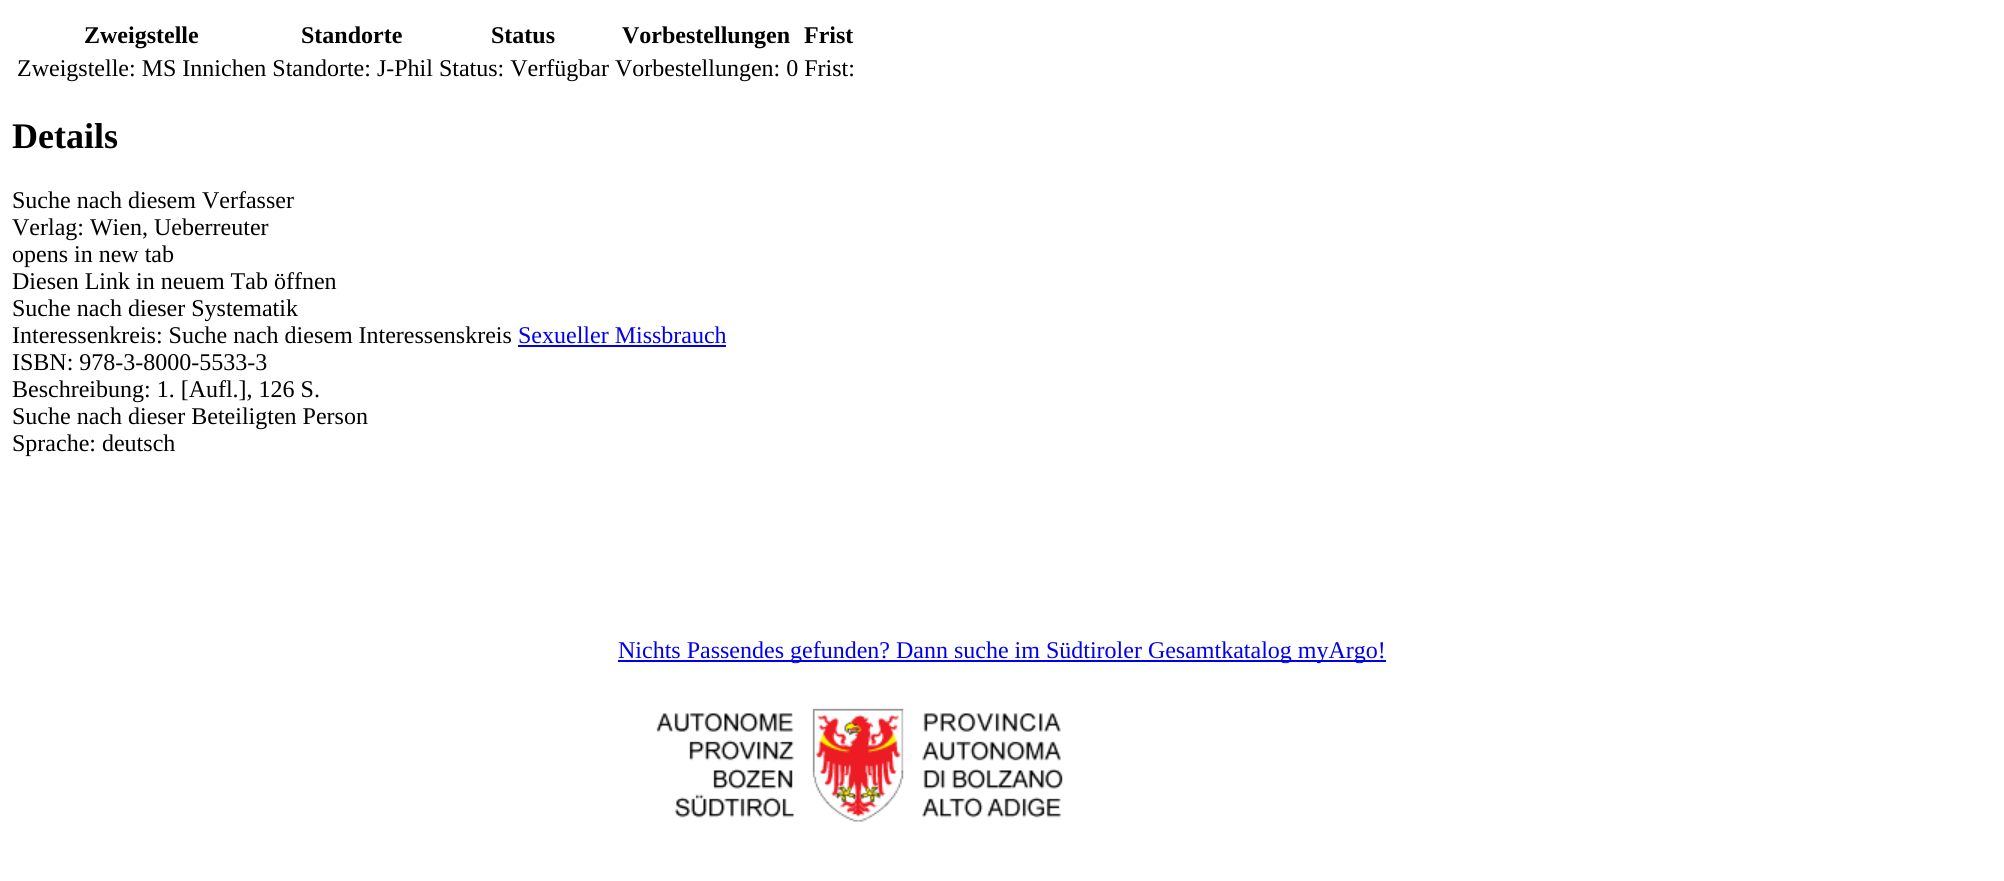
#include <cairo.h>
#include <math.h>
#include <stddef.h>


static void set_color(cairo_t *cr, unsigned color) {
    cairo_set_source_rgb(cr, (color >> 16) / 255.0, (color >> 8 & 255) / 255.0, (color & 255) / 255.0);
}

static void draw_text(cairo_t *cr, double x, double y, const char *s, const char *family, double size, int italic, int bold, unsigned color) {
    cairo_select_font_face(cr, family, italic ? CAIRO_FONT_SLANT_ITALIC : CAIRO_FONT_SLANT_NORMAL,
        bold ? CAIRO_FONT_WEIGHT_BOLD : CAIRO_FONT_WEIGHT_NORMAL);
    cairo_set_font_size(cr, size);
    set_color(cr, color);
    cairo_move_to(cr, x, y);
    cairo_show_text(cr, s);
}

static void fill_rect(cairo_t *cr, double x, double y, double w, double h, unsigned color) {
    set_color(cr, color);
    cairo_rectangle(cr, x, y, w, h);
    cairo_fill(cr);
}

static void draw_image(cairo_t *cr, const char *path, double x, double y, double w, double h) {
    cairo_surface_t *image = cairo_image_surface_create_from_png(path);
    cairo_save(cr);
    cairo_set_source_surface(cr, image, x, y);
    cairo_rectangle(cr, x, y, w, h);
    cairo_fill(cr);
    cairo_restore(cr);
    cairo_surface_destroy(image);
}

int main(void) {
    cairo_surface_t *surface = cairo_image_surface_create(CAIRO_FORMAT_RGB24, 2004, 881);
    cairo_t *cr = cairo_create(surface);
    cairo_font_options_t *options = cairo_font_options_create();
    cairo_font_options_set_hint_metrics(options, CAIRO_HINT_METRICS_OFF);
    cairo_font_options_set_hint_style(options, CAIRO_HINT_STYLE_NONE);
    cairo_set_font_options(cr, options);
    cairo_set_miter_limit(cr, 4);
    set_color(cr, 0xFFFFFF);
    cairo_paint(cr);
    draw_text(cr, 84, 43, "Zweigstelle", "Liberation Serif", 24, 0, 1, 0x000000);
    draw_text(cr, 301, 43, "Standorte", "Liberation Serif", 24, 0, 1, 0x000000);
    draw_text(cr, 491, 43, "Status", "Liberation Serif", 24, 0, 1, 0x000000);
    draw_text(cr, 622, 43, "Vorbestellungen", "Liberation Serif", 24, 0, 1, 0x000000);
    draw_text(cr, 804, 43, "Frist", "Liberation Serif", 24, 0, 1, 0x000000);
    draw_text(cr, 17, 76, "Zweigstelle: MS Innichen Standorte: J-Phil Status: Verfügbar Vorbestellungen: 0 Frist:", "Liberation Serif", 24, 0, 0, 0x000000);
    draw_text(cr, 12, 148, "Details", "Liberation Serif", 36, 0, 1, 0x000000);
    draw_text(cr, 12, 208, "Suche nach diesem Verfasser", "Liberation Serif", 24, 0, 0, 0x000000);
    draw_text(cr, 12, 235, "Verlag: Wien, Ueberreuter", "Liberation Serif", 24, 0, 0, 0x000000);
    draw_text(cr, 12, 262, "opens in new tab", "Liberation Serif", 24, 0, 0, 0x000000);
    draw_text(cr, 12, 289, "Diesen Link in neuem Tab öffnen", "Liberation Serif", 24, 0, 0, 0x000000);
    draw_text(cr, 12, 316, "Suche nach dieser Systematik", "Liberation Serif", 24, 0, 0, 0x000000);
    draw_text(cr, 12, 343, "Interessenkreis: Suche nach diesem Interessenskreis", "Liberation Serif", 24, 0, 0, 0x000000);
    draw_text(cr, 518, 343, "Sexueller Missbrauch", "Liberation Serif", 24, 0, 0, 0x0000EE);
    fill_rect(cr, 518, 345, 208, 2, 0x0000EE);
    draw_text(cr, 12, 370, "ISBN: 978-3-8000-5533-3", "Liberation Serif", 24, 0, 0, 0x000000);
    draw_text(cr, 12, 397, "Beschreibung: 1. [Aufl.], 126 S.", "Liberation Serif", 24, 0, 0, 0x000000);
    draw_text(cr, 12, 424, "Suche nach dieser Beteiligten Person", "Liberation Serif", 24, 0, 0, 0x000000);
    draw_text(cr, 12, 451, "Sprache: deutsch", "Liberation Serif", 24, 0, 0, 0x000000);
    fill_rect(cr, 618, 660, 768, 2, 0x0000EE);
    draw_text(cr, 618, 658, "Nichts Passendes gefunden? Dann suche im Südtiroler Gesamtkatalog myArgo!", "Liberation Serif", 24, 0, 0, 0x0000EE);
    draw_image(cr, "assets/img1.png", 656, 708, 407, 114);
    cairo_surface_write_to_png(surface, "output.png");
    cairo_font_options_destroy(options);
    cairo_destroy(cr);
    cairo_surface_destroy(surface);
    return 0;
}
